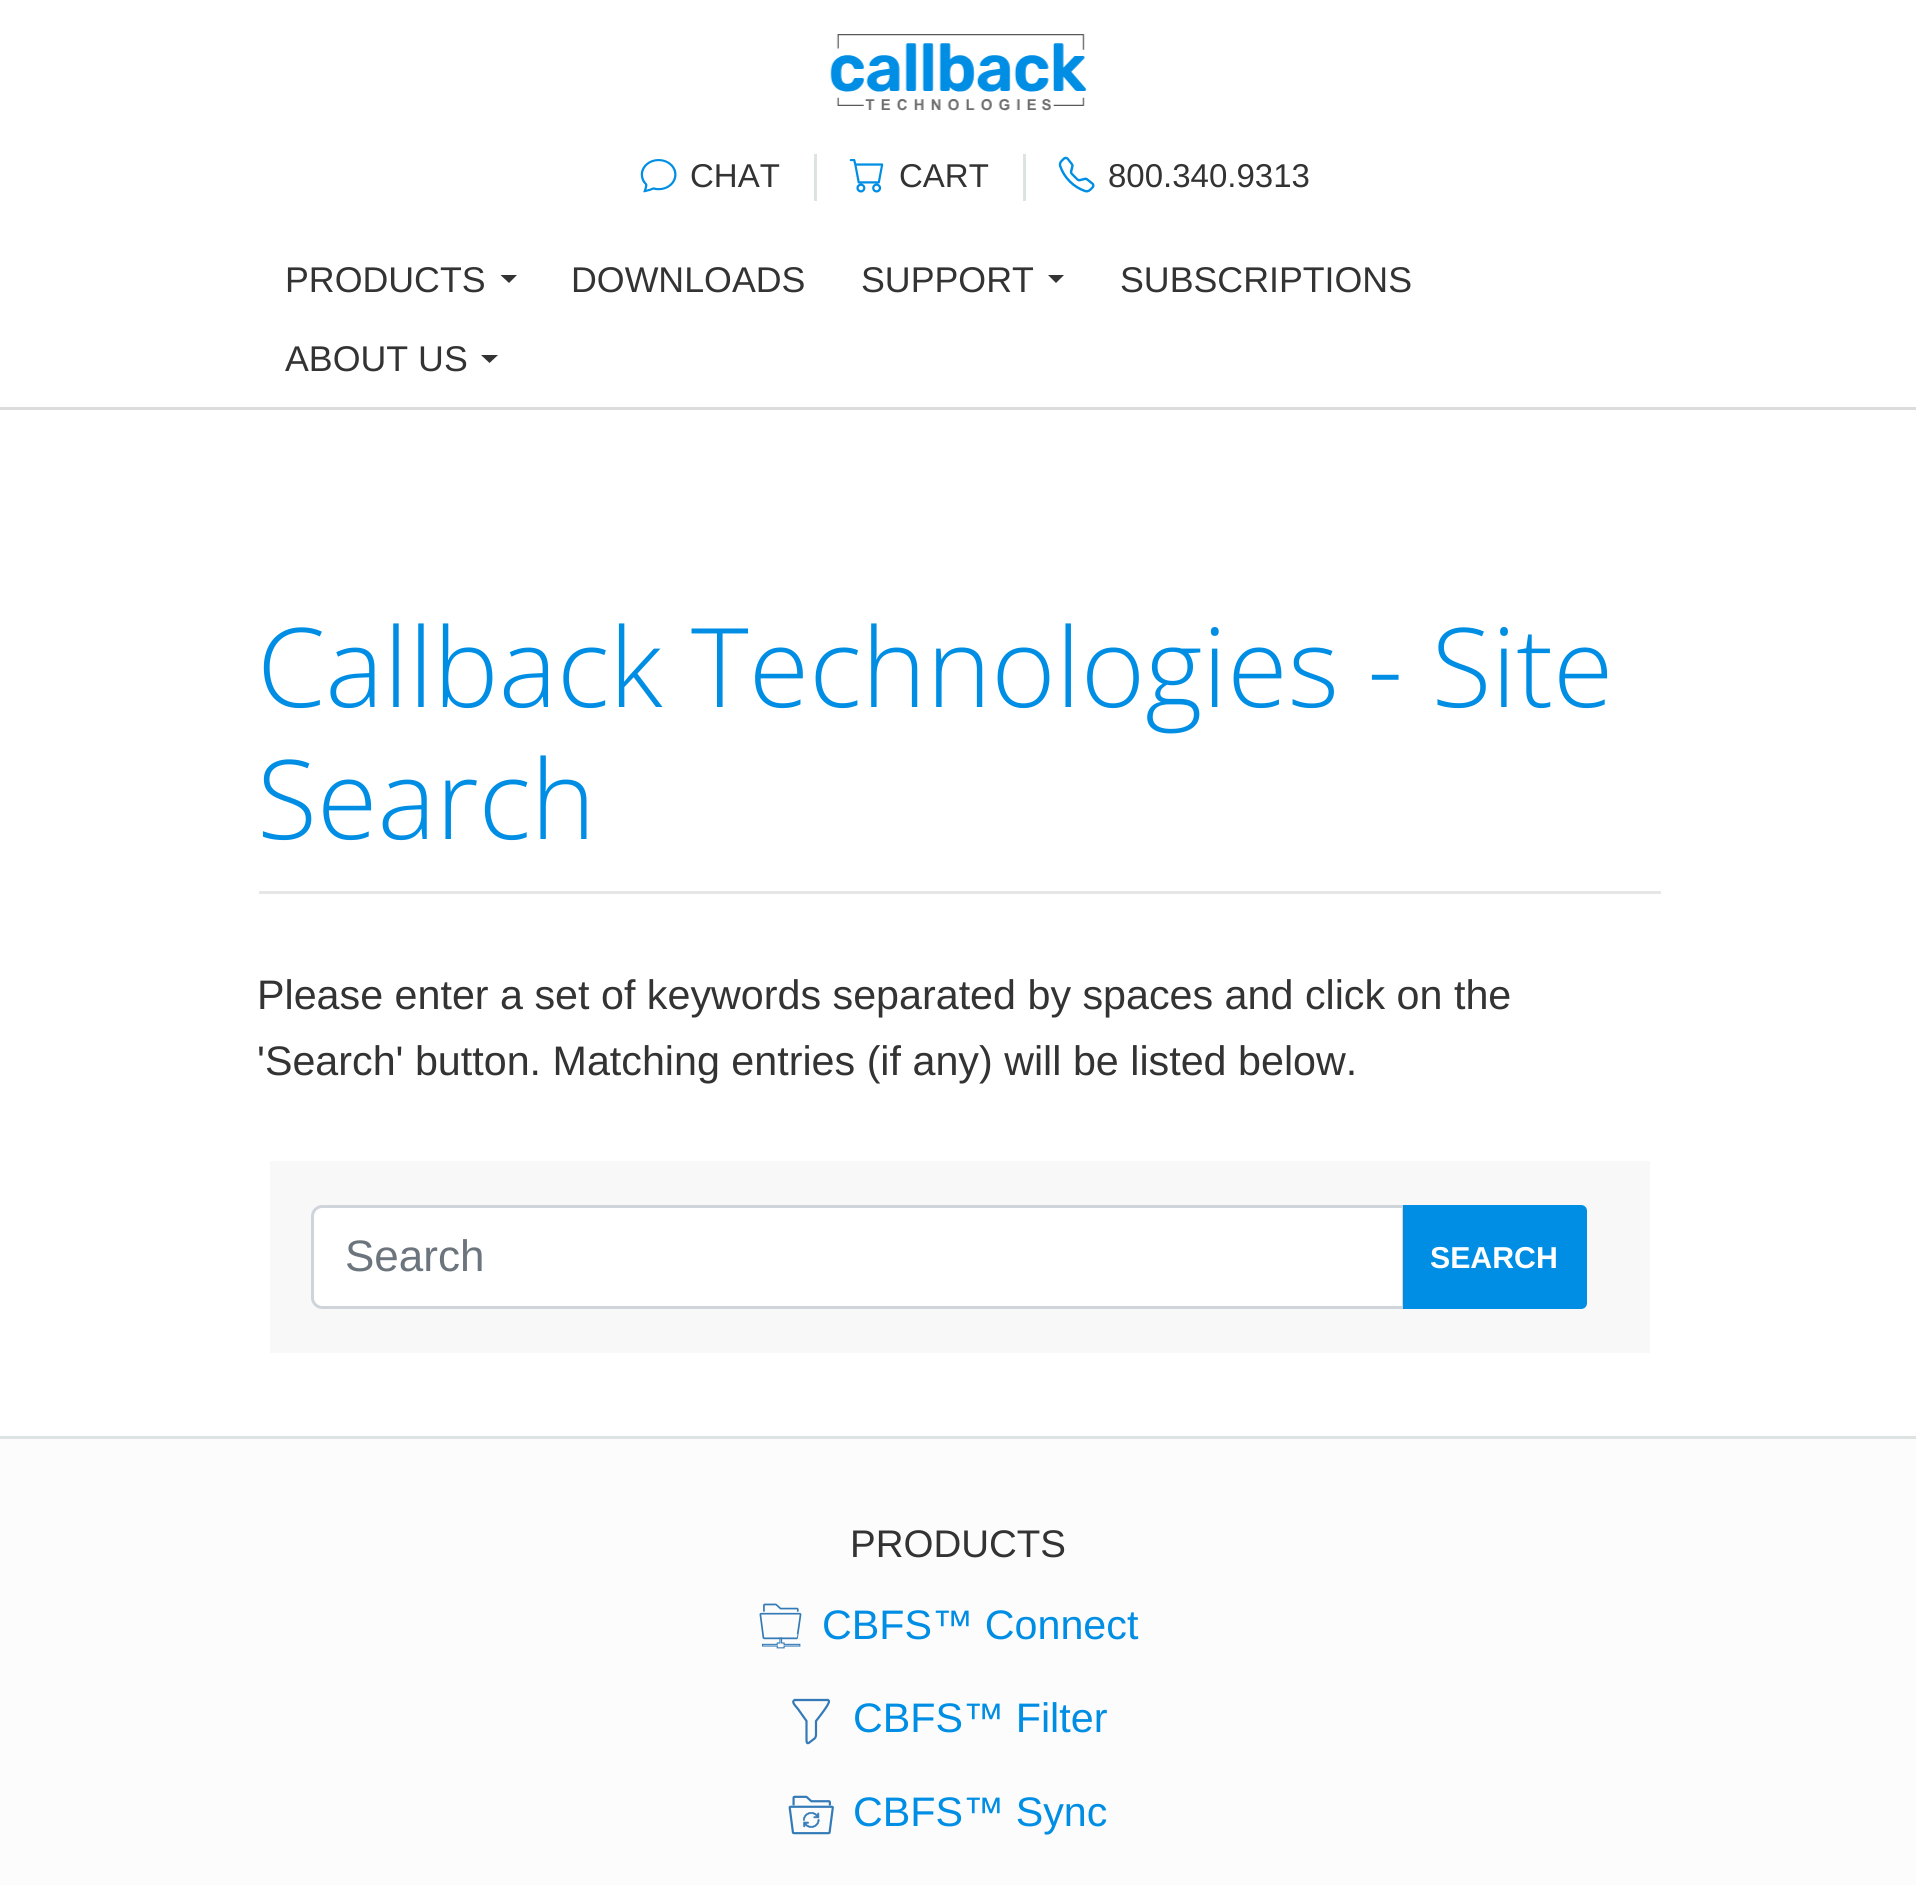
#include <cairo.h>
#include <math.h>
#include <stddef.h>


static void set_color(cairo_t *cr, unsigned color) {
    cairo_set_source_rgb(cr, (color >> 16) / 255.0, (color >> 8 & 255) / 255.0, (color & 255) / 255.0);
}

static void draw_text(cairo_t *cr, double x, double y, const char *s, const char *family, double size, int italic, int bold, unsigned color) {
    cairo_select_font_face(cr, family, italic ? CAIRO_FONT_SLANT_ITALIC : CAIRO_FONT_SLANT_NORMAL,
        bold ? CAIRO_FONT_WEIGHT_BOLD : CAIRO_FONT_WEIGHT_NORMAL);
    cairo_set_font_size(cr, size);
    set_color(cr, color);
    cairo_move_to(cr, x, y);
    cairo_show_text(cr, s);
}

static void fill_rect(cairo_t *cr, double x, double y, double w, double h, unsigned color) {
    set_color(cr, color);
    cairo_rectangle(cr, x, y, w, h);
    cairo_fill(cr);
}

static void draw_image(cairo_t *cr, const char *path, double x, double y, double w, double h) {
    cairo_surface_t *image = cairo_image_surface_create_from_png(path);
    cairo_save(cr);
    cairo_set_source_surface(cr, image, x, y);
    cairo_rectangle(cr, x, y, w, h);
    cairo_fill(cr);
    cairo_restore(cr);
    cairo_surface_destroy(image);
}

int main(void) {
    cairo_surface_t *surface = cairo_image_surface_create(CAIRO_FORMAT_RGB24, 1916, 1885);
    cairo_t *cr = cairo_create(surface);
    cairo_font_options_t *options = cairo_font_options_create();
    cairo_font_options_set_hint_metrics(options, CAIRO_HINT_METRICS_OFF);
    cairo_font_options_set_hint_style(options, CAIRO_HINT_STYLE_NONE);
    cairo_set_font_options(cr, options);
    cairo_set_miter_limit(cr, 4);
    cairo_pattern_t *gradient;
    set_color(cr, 0xFFFFFF);
    cairo_paint(cr);
    fill_rect(cr, 0, 407, 1916, 3, 0xDCDCDC);
    draw_image(cr, "assets/img1.png", 830, 34, 257, 77);
    fill_rect(cr, 814, 154, 3, 47, 0xDDE3E3);
    draw_image(cr, "assets/img2.png", 640, 159, 37, 34);
    draw_text(cr, 690, 187, "CHAT", "Liberation Sans", 33, 0, 0, 0x333333);
    fill_rect(cr, 1023, 154, 3, 47, 0xDDE3E3);
    draw_image(cr, "assets/img3.png", 849, 159, 35, 34);
    draw_text(cr, 899, 187, "CART", "Liberation Sans", 33, 0, 0, 0x333333);
    draw_image(cr, "assets/img4.png", 1058, 156, 37, 37);
    draw_text(cr, 1108, 187, "800.340.9313", "Liberation Sans", 33, 0, 0, 0x333333);
    draw_text(cr, 285, 292, "PRODUCTS", "Liberation Sans", 35.75, 0, 0, 0x333333);
    cairo_new_path(cr);
    cairo_move_to(cr, 500.5, 275);
    cairo_line_to(cr, 517, 275);
    cairo_line_to(cr, 509, 283);
    cairo_close_path(cr);
    cairo_fill(cr);
    draw_text(cr, 571, 292, "DOWNLOADS", "Liberation Sans", 35.75, 0, 0, 0x333333);
    draw_text(cr, 861, 292, "SUPPORT", "Liberation Sans", 35.75, 0, 0, 0x333333);
    cairo_new_path(cr);
    cairo_move_to(cr, 1048, 275);
    cairo_line_to(cr, 1064, 275);
    cairo_line_to(cr, 1056, 283);
    cairo_close_path(cr);
    cairo_fill(cr);
    draw_text(cr, 1120, 292, "SUBSCRIPTIONS", "Liberation Sans", 35.75, 0, 0, 0x333333);
    draw_text(cr, 285, 371, "ABOUT US", "Liberation Sans", 35.75, 0, 0, 0x333333);
    cairo_new_path(cr);
    cairo_move_to(cr, 481, 355);
    cairo_line_to(cr, 498, 355);
    cairo_line_to(cr, 489.5, 363);
    cairo_close_path(cr);
    cairo_fill(cr);
    draw_text(cr, 257, 707, "Callback Technologies - Site", "Open Sans Light", 110, 0, 0, 0x008EE5);
    draw_text(cr, 257, 839, "Search", "Open Sans Light", 110, 0, 0, 0x008EE5);
    fill_rect(cr, 259, 891, 1402, 3, 0xE6E6E6);
    draw_text(cr, 257, 1009, "Please enter a set of keywords separated by spaces and click on the", "Liberation Sans", 41.25, 0, 0, 0x333333);
    draw_text(cr, 257, 1075, "'Search' button. Matching entries (if any) will be listed below.", "Liberation Sans", 41.25, 0, 0, 0x333333);
    fill_rect(cr, 270, 1161, 1380, 192, 0xF8F8F8);
    set_color(cr, 0xFFFFFF);
    cairo_new_path(cr);
    cairo_move_to(cr, 322, 1206.5);
    cairo_line_to(cr, 1403.5, 1206.5);
    cairo_line_to(cr, 1403.5, 1307.5);
    cairo_line_to(cr, 322, 1307.5);
    cairo_curve_to(cr, 317, 1307.5, 312.5, 1303, 312.5, 1298);
    cairo_line_to(cr, 312.5, 1216);
    cairo_curve_to(cr, 312.5, 1211, 317, 1206.5, 322, 1206.5);
    cairo_close_path(cr);
    cairo_fill_preserve(cr);
    set_color(cr, 0xCED4DA);
    cairo_set_line_width(cr, 3);
    cairo_stroke(cr);
    draw_text(cr, 345, 1271, "Search", "Liberation Sans", 44, 0, 0, 0x6C757D);
    set_color(cr, 0x008EE5);
    cairo_new_path(cr);
    cairo_move_to(cr, 1403, 1205);
    cairo_line_to(cr, 1581, 1205);
    cairo_curve_to(cr, 1584.5, 1205, 1587, 1207.5, 1587, 1211);
    cairo_line_to(cr, 1587, 1303);
    cairo_curve_to(cr, 1587, 1306.5, 1584.5, 1309, 1581, 1309);
    cairo_line_to(cr, 1403, 1309);
    cairo_close_path(cr);
    cairo_fill(cr);
    draw_text(cr, 1430, 1268, "SEARCH", "Liberation Sans", 30.25, 0, 1, 0xFFFFFF);
    gradient = cairo_pattern_create_linear(958, 1438, 958, 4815);
    cairo_pattern_add_color_stop_rgba(gradient, 0, 0.988, 0.988, 0.988, 1);
    cairo_pattern_add_color_stop_rgba(gradient, 1, 1, 1, 1, 1);
    cairo_set_source(cr, gradient);
    cairo_pattern_destroy(gradient);
    cairo_rectangle(cr, 0, 1439, 1916, 446);
    cairo_fill(cr);
    fill_rect(cr, 0, 1436, 1916, 3, 0xDDE3E3);
    draw_text(cr, 850, 1557, "PRODUCTS", "Liberation Sans", 38.5, 0, 0, 0x333333);
    draw_image(cr, "assets/img5.png", 759, 1603, 43, 46);
    draw_text(cr, 822, 1639, "CBFS™ Connect", "Liberation Sans", 41.25, 0, 0, 0x008EE5);
    cairo_new_path(cr);
    cairo_move_to(cr, 793.5, 1701);
    cairo_curve_to(cr, 792, 1703, 797, 1707.5, 798, 1709);
    cairo_line_to(cr, 806.5, 1721);
    cairo_line_to(cr, 806.5, 1738.5);
    cairo_curve_to(cr, 806.5, 1742, 806.5, 1745, 810, 1742);
    cairo_curve_to(cr, 814, 1738.5, 816, 1739, 816, 1734);
    cairo_line_to(cr, 816, 1721);
    cairo_curve_to(cr, 818, 1718.5, 830, 1703.5, 829, 1701);
    cairo_line_to(cr, 828, 1700);
    cairo_line_to(cr, 794.5, 1700);
    cairo_close_path(cr);
    set_color(cr, 0x337AB7);
    cairo_set_line_width(cr, 2.2);
    cairo_stroke(cr);
    draw_text(cr, 853, 1732, "CBFS™ Filter", "Liberation Sans", 41.25, 0, 0, 0x008EE5);
    draw_image(cr, "assets/img6.png", 788, 1795, 46, 40);
    draw_text(cr, 853, 1826, "CBFS™ Sync", "Liberation Sans", 41.25, 0, 0, 0x008EE5);
    cairo_surface_write_to_png(surface, "output.png");
    cairo_font_options_destroy(options);
    cairo_destroy(cr);
    cairo_surface_destroy(surface);
    return 0;
}
